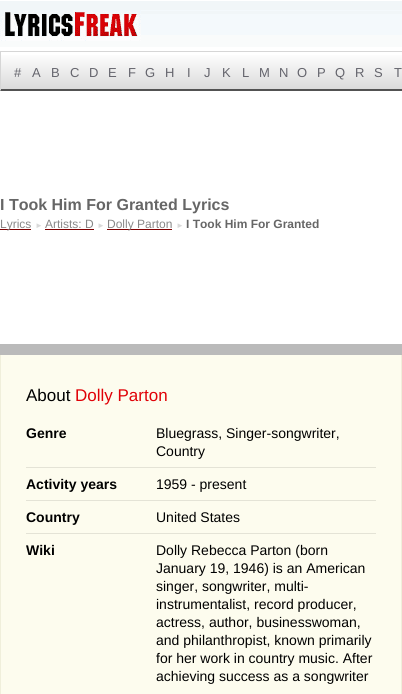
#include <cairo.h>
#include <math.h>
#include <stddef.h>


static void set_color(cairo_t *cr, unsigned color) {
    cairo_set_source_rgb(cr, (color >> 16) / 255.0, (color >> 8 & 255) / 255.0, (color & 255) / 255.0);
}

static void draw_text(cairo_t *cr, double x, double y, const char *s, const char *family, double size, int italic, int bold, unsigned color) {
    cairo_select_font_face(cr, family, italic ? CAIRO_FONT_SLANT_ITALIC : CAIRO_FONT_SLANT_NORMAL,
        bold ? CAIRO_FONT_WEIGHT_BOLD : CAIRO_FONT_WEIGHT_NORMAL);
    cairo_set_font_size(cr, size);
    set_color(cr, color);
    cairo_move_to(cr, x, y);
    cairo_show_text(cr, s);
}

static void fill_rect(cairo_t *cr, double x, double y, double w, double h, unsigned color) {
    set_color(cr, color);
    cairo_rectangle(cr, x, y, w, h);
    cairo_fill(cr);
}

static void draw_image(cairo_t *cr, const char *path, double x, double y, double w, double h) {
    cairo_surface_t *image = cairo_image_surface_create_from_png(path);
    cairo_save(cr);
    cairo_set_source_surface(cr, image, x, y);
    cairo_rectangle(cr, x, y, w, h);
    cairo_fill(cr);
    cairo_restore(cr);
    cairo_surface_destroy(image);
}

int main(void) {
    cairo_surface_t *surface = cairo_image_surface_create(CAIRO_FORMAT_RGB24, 402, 694);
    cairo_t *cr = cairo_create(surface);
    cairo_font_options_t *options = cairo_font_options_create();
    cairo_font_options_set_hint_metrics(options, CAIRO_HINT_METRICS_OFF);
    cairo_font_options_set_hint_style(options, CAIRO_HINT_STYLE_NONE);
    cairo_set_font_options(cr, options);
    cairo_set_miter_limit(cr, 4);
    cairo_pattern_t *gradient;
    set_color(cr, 0xFFFFFF);
    cairo_paint(cr);
    draw_image(cr, "assets/img1.png", 0, 1, 402, 46);
    draw_image(cr, "assets/img2.png", 0, 10, 141, 31);
    gradient = cairo_pattern_create_linear(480, 52, 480, 89);
    cairo_pattern_add_color_stop_rgba(gradient, 0, 1, 1, 1, 1);
    cairo_pattern_add_color_stop_rgba(gradient, 1, 0.855, 0.855, 0.855, 1);
    cairo_set_source(cr, gradient);
    cairo_pattern_destroy(gradient);
    cairo_rectangle(cr, 1, 55, 401, 34);
    cairo_fill(cr);
    fill_rect(cr, 0, 51, 402, 1, 0xD6D6D6);
    set_color(cr, 0x525252);
    cairo_new_path(cr);
    cairo_move_to(cr, 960, 91);
    cairo_line_to(cr, 0, 91);
    cairo_line_to(cr, 1, 89);
    cairo_line_to(cr, 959, 89);
    cairo_close_path(cr);
    cairo_fill(cr);
    set_color(cr, 0xD6D6D6);
    cairo_new_path(cr);
    cairo_move_to(cr, 0, 91);
    cairo_line_to(cr, 0, 51);
    cairo_line_to(cr, 1, 52);
    cairo_line_to(cr, 1, 89);
    cairo_close_path(cr);
    cairo_fill(cr);
    draw_text(cr, 14, 77, "#", "Liberation Sans", 13, 0, 0, 0x64646C);
    draw_text(cr, 32, 77, "A", "Liberation Sans", 13, 0, 0, 0x64646C);
    draw_text(cr, 51, 77, "B", "Liberation Sans", 13, 0, 0, 0x64646C);
    draw_text(cr, 70, 77, "C", "Liberation Sans", 13, 0, 0, 0x64646C);
    draw_text(cr, 89, 77, "D", "Liberation Sans", 13, 0, 0, 0x64646C);
    draw_text(cr, 108, 77, "E", "Liberation Sans", 13, 0, 0, 0x64646C);
    draw_text(cr, 128, 77, "F", "Liberation Sans", 13, 0, 0, 0x64646C);
    draw_text(cr, 145, 77, "G", "Liberation Sans", 13, 0, 0, 0x64646C);
    draw_text(cr, 165, 77, "H", "Liberation Sans", 13, 0, 0, 0x64646C);
    draw_text(cr, 187, 77, "I", "Liberation Sans", 13, 0, 0, 0x64646C);
    draw_text(cr, 204, 77, "J", "Liberation Sans", 13, 0, 0, 0x64646C);
    draw_text(cr, 222, 77, "K", "Liberation Sans", 13, 0, 0, 0x64646C);
    draw_text(cr, 242, 77, "L", "Liberation Sans", 13, 0, 0, 0x64646C);
    draw_text(cr, 259, 77, "M", "Liberation Sans", 13, 0, 0, 0x64646C);
    draw_text(cr, 279, 77, "N", "Liberation Sans", 13, 0, 0, 0x64646C);
    draw_text(cr, 297, 77, "O", "Liberation Sans", 13, 0, 0, 0x64646C);
    draw_text(cr, 317, 77, "P", "Liberation Sans", 13, 0, 0, 0x64646C);
    draw_text(cr, 335, 77, "Q", "Liberation Sans", 13, 0, 0, 0x64646C);
    draw_text(cr, 355, 77, "R", "Liberation Sans", 13, 0, 0, 0x64646C);
    draw_text(cr, 374, 77, "S", "Liberation Sans", 13, 0, 0, 0x64646C);
    draw_text(cr, 394, 77, "T", "Liberation Sans", 13, 0, 0, 0x64646C);
    draw_text(cr, 0, 210, "I Took Him For Granted Lyrics", "Liberation Sans", 16, 0, 1, 0x666666);
    fill_rect(cr, 0, 229, 31, 1, 0x800000);
    draw_text(cr, 0, 228, "Lyrics", "Liberation Sans", 12, 0, 0, 0x888888);
    draw_text(cr, 35, 228, "►", "Liberation Sans", 8, 0, 0, 0xD9D9D9);
    draw_text(cr, 45, 228, "Artists: D", "Liberation Sans", 12, 0, 0, 0x888888);
    fill_rect(cr, 45, 229, 49, 1, 0x800000);
    draw_text(cr, 97, 228, "►", "Liberation Sans", 8, 0, 0, 0xD9D9D9);
    fill_rect(cr, 107, 229, 65, 1, 0x800000);
    draw_text(cr, 107, 228, "Dolly Parton", "Liberation Sans", 12, 0, 0, 0x888888);
    draw_text(cr, 176, 228, "►", "Liberation Sans", 8, 0, 0, 0xD9D9D9);
    draw_text(cr, 186, 228, "I Took Him For Granted", "Liberation Sans", 12, 0, 1, 0x666666);
    fill_rect(cr, 0, 344, 402, 11, 0xBABABA);
    fill_rect(cr, 0, 355, 1, 339, 0xF0EFDB);
    fill_rect(cr, 1, 355, 400, 339, 0xFDFCEE);
    fill_rect(cr, 401, 355, 1, 339, 0xF0EFDB);
    draw_text(cr, 26, 401, "About", "Liberation Sans", 17, 0, 0, 0x000000);
    draw_text(cr, 75, 401, "Dolly Parton", "Liberation Sans", 17, 0, 0, 0xE00107);
    fill_rect(cr, 26, 467, 350, 1, 0xE4E3D6);
    draw_text(cr, 26, 438, "Genre", "Liberation Sans", 14, 0, 1, 0x000000);
    draw_text(cr, 156, 438, "Bluegrass, Singer-songwriter,", "Liberation Sans", 14, 0, 0, 0x000000);
    draw_text(cr, 156, 456, "Country", "Liberation Sans", 14, 0, 0, 0x000000);
    fill_rect(cr, 26, 500, 350, 1, 0xE4E3D6);
    draw_text(cr, 26, 489, "Activity years", "Liberation Sans", 14, 0, 1, 0x000000);
    draw_text(cr, 156, 489, "1959 - present", "Liberation Sans", 14, 0, 0, 0x000000);
    fill_rect(cr, 26, 533, 350, 1, 0xE4E3D6);
    draw_text(cr, 26, 522, "Country", "Liberation Sans", 14, 0, 1, 0x000000);
    draw_text(cr, 156, 522, "United States", "Liberation Sans", 14, 0, 0, 0x000000);
    draw_text(cr, 26, 555, "Wiki", "Liberation Sans", 14, 0, 1, 0x000000);
    draw_text(cr, 156, 555, "Dolly Rebecca Parton (born", "Liberation Sans", 14, 0, 0, 0x000000);
    draw_text(cr, 156, 573, "January 19, 1946) is an American", "Liberation Sans", 14, 0, 0, 0x000000);
    draw_text(cr, 156, 591, "singer, songwriter, multi-", "Liberation Sans", 14, 0, 0, 0x000000);
    draw_text(cr, 156, 609, "instrumentalist, record producer,", "Liberation Sans", 14, 0, 0, 0x000000);
    draw_text(cr, 156, 627, "actress, author, businesswoman,", "Liberation Sans", 14, 0, 0, 0x000000);
    draw_text(cr, 156, 645, "and philanthropist, known primarily", "Liberation Sans", 14, 0, 0, 0x000000);
    draw_text(cr, 156, 663, "for her work in country music. After", "Liberation Sans", 14, 0, 0, 0x000000);
    draw_text(cr, 156, 681, "achieving success as a songwriter", "Liberation Sans", 14, 0, 0, 0x000000);
    cairo_surface_write_to_png(surface, "output.png");
    cairo_font_options_destroy(options);
    cairo_destroy(cr);
    cairo_surface_destroy(surface);
    return 0;
}
